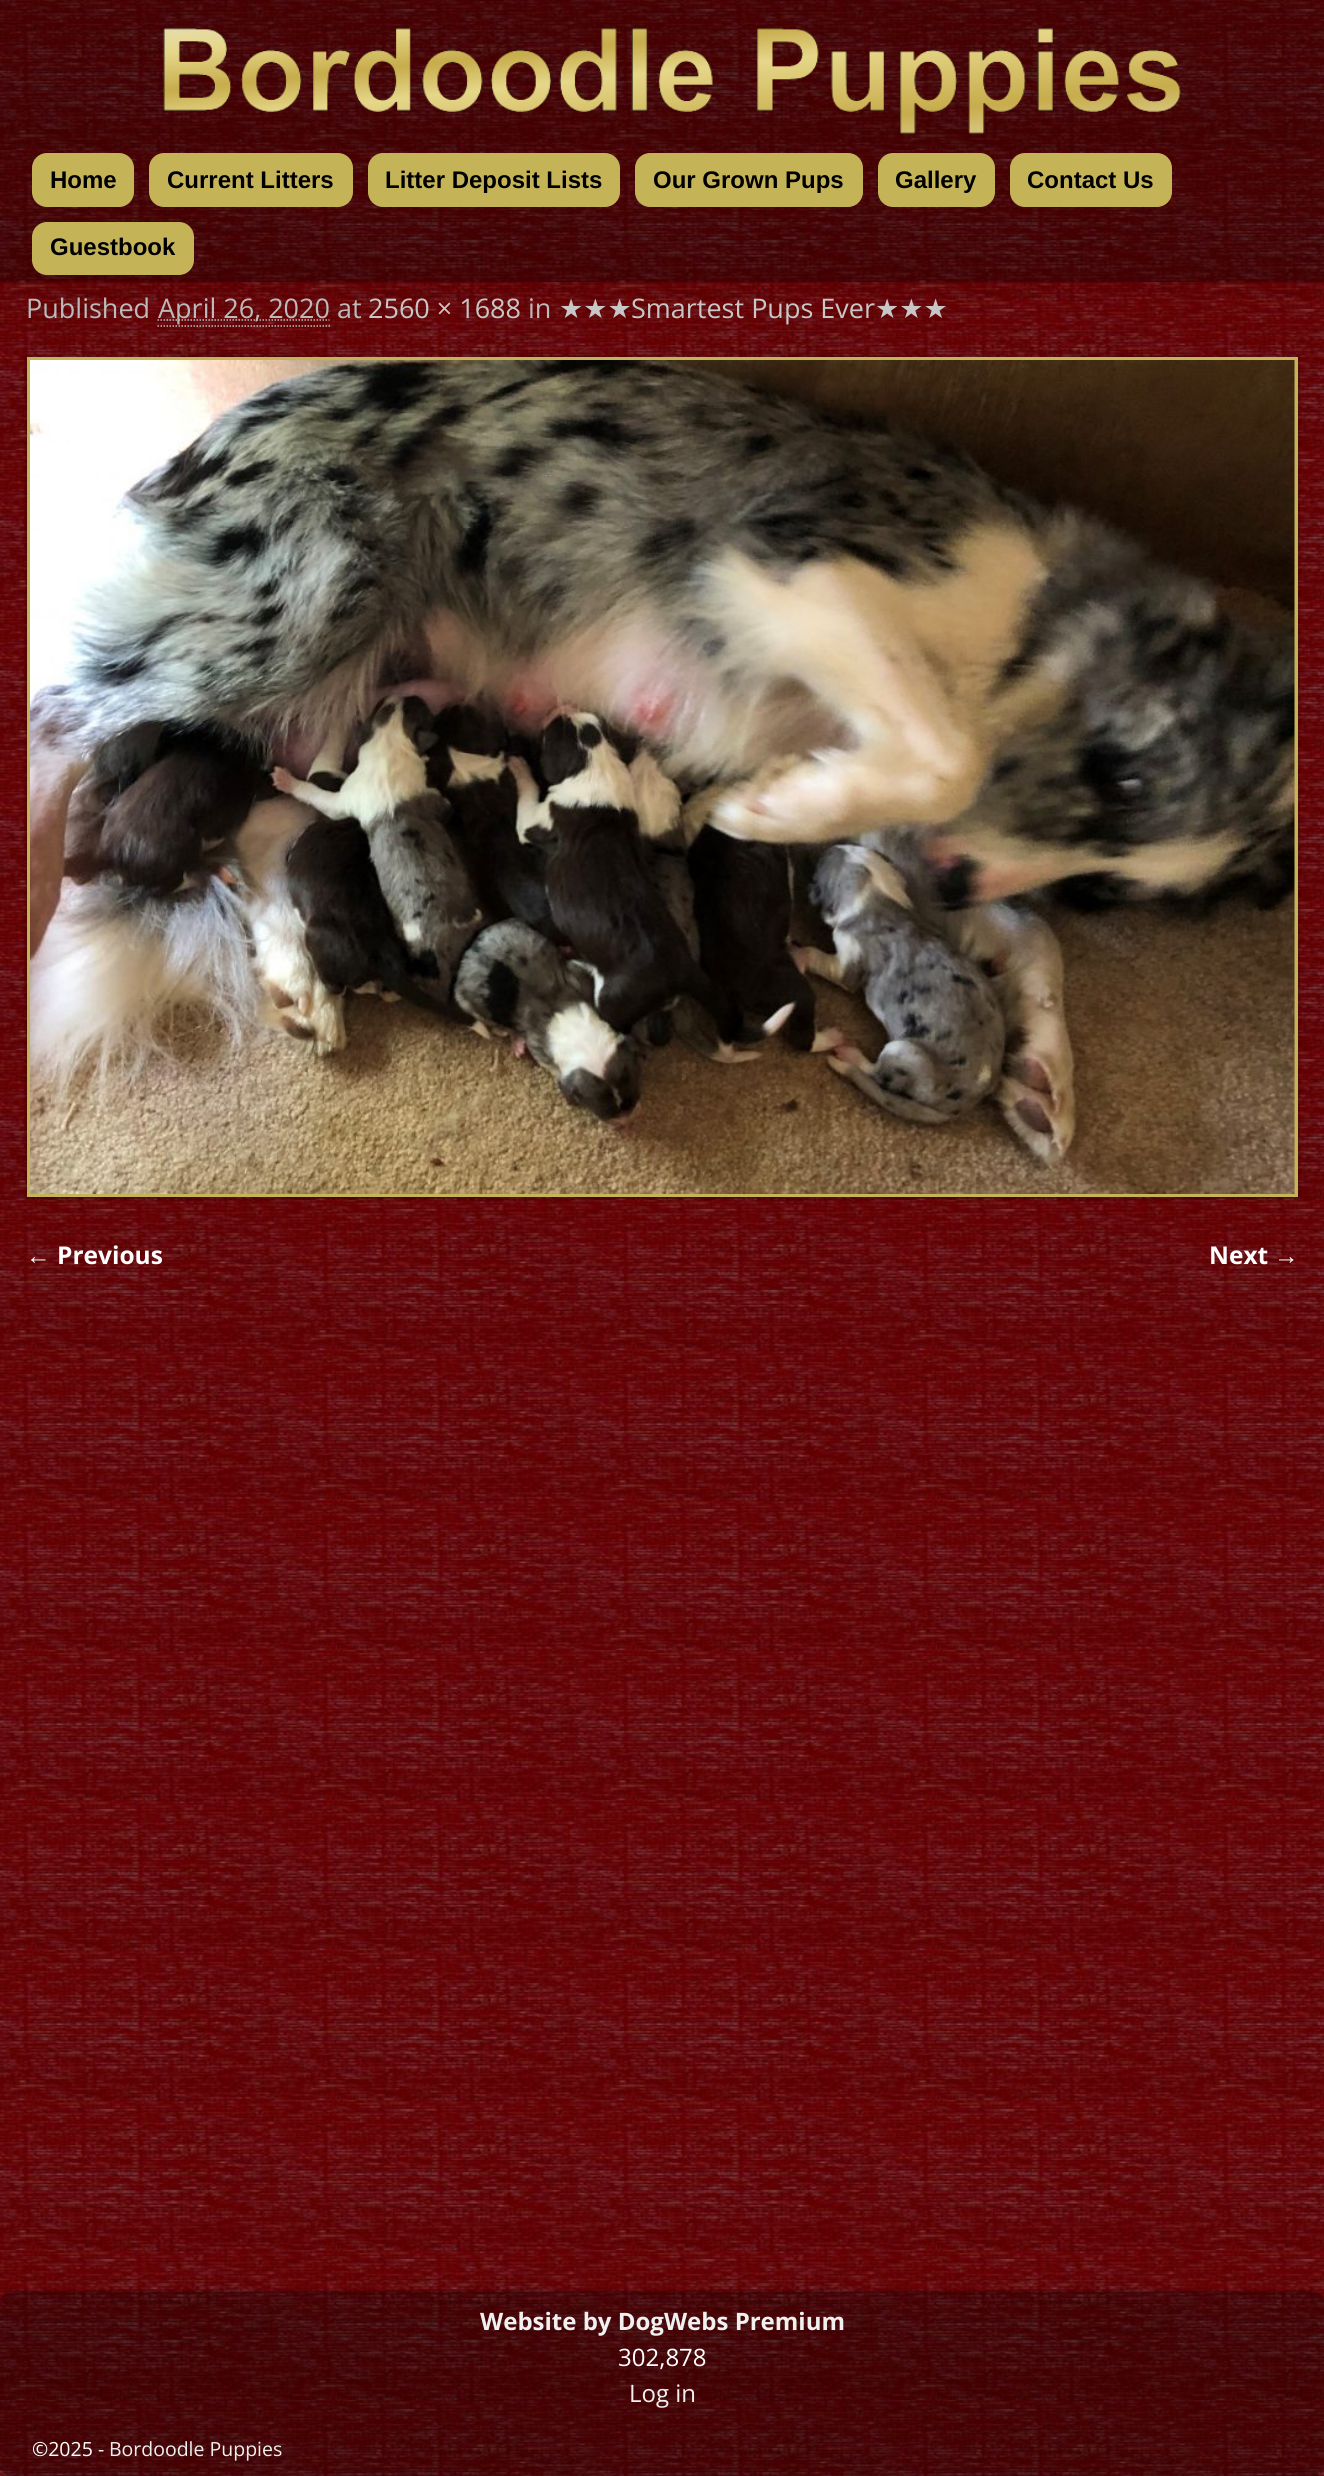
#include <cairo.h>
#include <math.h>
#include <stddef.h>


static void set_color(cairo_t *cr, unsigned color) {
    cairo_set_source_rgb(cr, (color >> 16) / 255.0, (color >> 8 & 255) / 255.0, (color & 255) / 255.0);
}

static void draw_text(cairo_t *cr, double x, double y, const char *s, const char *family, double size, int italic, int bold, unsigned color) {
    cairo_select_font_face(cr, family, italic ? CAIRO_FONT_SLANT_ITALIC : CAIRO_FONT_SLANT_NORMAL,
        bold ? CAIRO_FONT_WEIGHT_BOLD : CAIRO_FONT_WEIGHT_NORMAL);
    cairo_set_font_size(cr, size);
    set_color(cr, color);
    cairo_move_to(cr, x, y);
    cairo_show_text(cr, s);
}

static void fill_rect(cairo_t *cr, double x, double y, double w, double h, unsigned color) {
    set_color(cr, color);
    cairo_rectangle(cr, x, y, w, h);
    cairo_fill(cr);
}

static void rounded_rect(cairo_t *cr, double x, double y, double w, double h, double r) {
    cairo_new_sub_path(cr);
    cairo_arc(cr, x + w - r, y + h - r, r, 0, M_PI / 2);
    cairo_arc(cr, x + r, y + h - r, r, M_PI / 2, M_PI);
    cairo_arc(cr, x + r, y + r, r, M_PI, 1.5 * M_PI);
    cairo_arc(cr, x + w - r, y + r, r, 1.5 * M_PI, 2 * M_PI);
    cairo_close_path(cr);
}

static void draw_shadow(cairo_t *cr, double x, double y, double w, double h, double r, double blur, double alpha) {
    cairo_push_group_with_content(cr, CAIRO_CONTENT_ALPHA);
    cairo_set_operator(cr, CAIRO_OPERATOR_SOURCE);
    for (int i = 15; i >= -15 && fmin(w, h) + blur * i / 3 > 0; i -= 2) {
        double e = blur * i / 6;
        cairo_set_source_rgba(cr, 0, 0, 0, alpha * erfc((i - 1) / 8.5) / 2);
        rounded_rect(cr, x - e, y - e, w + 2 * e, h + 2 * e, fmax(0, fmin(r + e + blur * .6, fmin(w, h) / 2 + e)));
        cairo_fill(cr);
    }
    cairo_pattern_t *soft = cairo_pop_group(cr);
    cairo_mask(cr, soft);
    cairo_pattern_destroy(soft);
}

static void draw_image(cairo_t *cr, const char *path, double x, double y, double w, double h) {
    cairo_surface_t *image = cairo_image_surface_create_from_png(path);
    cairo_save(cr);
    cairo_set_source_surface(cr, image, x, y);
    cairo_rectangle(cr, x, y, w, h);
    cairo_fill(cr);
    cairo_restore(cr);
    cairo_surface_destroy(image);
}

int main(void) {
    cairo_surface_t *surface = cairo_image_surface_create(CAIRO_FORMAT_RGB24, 1324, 2476);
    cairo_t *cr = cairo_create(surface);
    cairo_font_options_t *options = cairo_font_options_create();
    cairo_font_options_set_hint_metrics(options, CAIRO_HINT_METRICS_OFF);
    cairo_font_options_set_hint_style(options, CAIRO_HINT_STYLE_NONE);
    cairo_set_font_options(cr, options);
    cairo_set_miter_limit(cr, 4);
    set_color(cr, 0xFFFFFF);
    cairo_paint(cr);
    draw_image(cr, "assets/img1.png", 0, 0, 1324, 2476);
    cairo_set_source_rgba(cr, 0, 0, 0, 0.3);
    cairo_rectangle(cr, 0, 0, 1324, 282);
    cairo_fill(cr);
    draw_image(cr, "assets/img2.png", 163, 28, 1018, 106);
    set_color(cr, 0xC5B358);
    rounded_rect(cr, 32, 153, 102, 54, 15);
    cairo_fill(cr);
    draw_text(cr, 50, 188, "Home", "Liberation Sans", 24, 0, 1, 0x000000);
    set_color(cr, 0xC5B358);
    rounded_rect(cr, 149, 153, 204, 54, 15);
    cairo_fill(cr);
    draw_text(cr, 167, 188, "Current Litters", "Liberation Sans", 24, 0, 1, 0x000000);
    set_color(cr, 0xC5B358);
    rounded_rect(cr, 368, 153, 252, 54, 15);
    cairo_fill(cr);
    draw_text(cr, 385, 188, "Litter Deposit Lists", "Liberation Sans", 24, 0, 1, 0x000000);
    set_color(cr, 0xC5B358);
    rounded_rect(cr, 635, 153, 228, 54, 15);
    cairo_fill(cr);
    draw_text(cr, 653, 188, "Our Grown Pups", "Liberation Sans", 24, 0, 1, 0x000000);
    set_color(cr, 0xC5B358);
    rounded_rect(cr, 878, 153, 117, 54, 15);
    cairo_fill(cr);
    draw_text(cr, 895, 188, "Gallery", "Liberation Sans", 24, 0, 1, 0x000000);
    set_color(cr, 0xC5B358);
    rounded_rect(cr, 1010, 153, 162, 54, 15);
    cairo_fill(cr);
    draw_text(cr, 1027, 188, "Contact Us", "Liberation Sans", 24, 0, 1, 0x000000);
    set_color(cr, 0xC5B358);
    rounded_rect(cr, 32, 222, 162, 53, 15);
    cairo_fill(cr);
    draw_text(cr, 50, 255, "Guestbook", "Liberation Sans", 24, 0, 1, 0x000000);
    draw_text(cr, 26, 318, "Published", "Open Sans", 27, 0, 0, 0xBBBBBB);
    cairo_new_path(cr);
    cairo_move_to(cr, 157.5, 320);
    cairo_line_to(cr, 329.5, 320);
    cairo_set_line_width(cr, 1.5);
    cairo_set_dash(cr, (double[]){1.5, 1.5}, 2, 0);
    cairo_stroke(cr);
    draw_text(cr, 158, 318, "April 26, 2020 at", "Open Sans", 27, 0, 0, 0xBBBBBB);
    cairo_new_path(cr);
    cairo_move_to(cr, 157.5, 326);
    cairo_line_to(cr, 330, 326);
    cairo_stroke(cr);
    draw_text(cr, 368, 318, "2560 × 1688", "Open Sans", 27, 0, 0, 0xC7C7C7);
    draw_text(cr, 528, 318, "in", "Open Sans", 27, 0, 0, 0xBBBBBB);
    draw_text(cr, 559, 318, "★★★", "DejaVu Sans", 27, 0, 0, 0xC7C7C7);
    draw_text(cr, 631, 318, "Smartest Pups Ever", "Open Sans", 27, 0, 0, 0xC7C7C7);
    draw_text(cr, 875, 318, "★★★", "DejaVu Sans", 27, 0, 0, 0xC7C7C7);
    set_color(cr, 0x000000);
    draw_shadow(cr, 26, 356, 1273, 843, 0, 1.5, 0.25);
    fill_rect(cr, 27, 357, 1271, 840, 0xC5B358);
    draw_image(cr, "assets/img3.png", 30, 360, 1265, 834);
    draw_text(cr, 26, 1264, "←", "Liberation Sans", 24.5, 0, 1, 0xFFFFFF);
    draw_text(cr, 57, 1264, "Previous", "Open Sans", 24.5, 0, 1, 0xFFFFFF);
    draw_text(cr, 1209, 1264, "Next", "Open Sans", 24.5, 0, 1, 0xFFFFFF);
    draw_text(cr, 1274, 1264, "→", "Liberation Sans", 24.5, 0, 1, 0xFFFFFF);
    cairo_save(cr);
    cairo_set_fill_rule(cr, CAIRO_FILL_RULE_EVEN_ODD);
    cairo_new_path(cr);
    cairo_move_to(cr, 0, 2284);
    cairo_line_to(cr, 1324, 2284);
    cairo_line_to(cr, 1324, 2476);
    cairo_line_to(cr, 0, 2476);
    cairo_close_path(cr);
    cairo_move_to(cr, 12, 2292);
    cairo_line_to(cr, 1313, 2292);
    cairo_curve_to(cr, 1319.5, 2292, 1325, 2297.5, 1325, 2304);
    cairo_line_to(cr, 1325, 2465);
    cairo_curve_to(cr, 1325, 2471.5, 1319.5, 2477, 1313, 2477);
    cairo_line_to(cr, 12, 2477);
    cairo_curve_to(cr, 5.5, 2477, 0, 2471.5, 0, 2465);
    cairo_line_to(cr, 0, 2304);
    cairo_curve_to(cr, 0, 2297.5, 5.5, 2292, 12, 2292);
    cairo_close_path(cr);
    cairo_clip(cr);
    set_color(cr, 0x000000);
    draw_shadow(cr, -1, 2291, 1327, 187, 14, 2, 0.25);
    cairo_restore(cr);
    cairo_set_source_rgba(cr, 0, 0, 0, 0.3);
    rounded_rect(cr, 0, 2292, 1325, 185, 12);
    cairo_fill(cr);
    draw_text(cr, 480, 2330, "Website by DogWebs Premium", "Open Sans", 24, 0, 1, 0xF0F0F0);
    draw_text(cr, 618, 2366, "302,878", "Open Sans", 24, 0, 0, 0xFFFFFF);
    draw_text(cr, 629, 2402, "Log in", "Open Sans", 24, 0, 0, 0xF0F0F0);
    draw_text(cr, 32, 2456, "©2025 -", "Open Sans", 19.5, 0, 0, 0xFFFFFF);
    draw_text(cr, 109, 2456, "Bordoodle Puppies", "Open Sans", 19.5, 0, 0, 0xF0F0F0);
    cairo_surface_write_to_png(surface, "output.png");
    cairo_font_options_destroy(options);
    cairo_destroy(cr);
    cairo_surface_destroy(surface);
    return 0;
}
